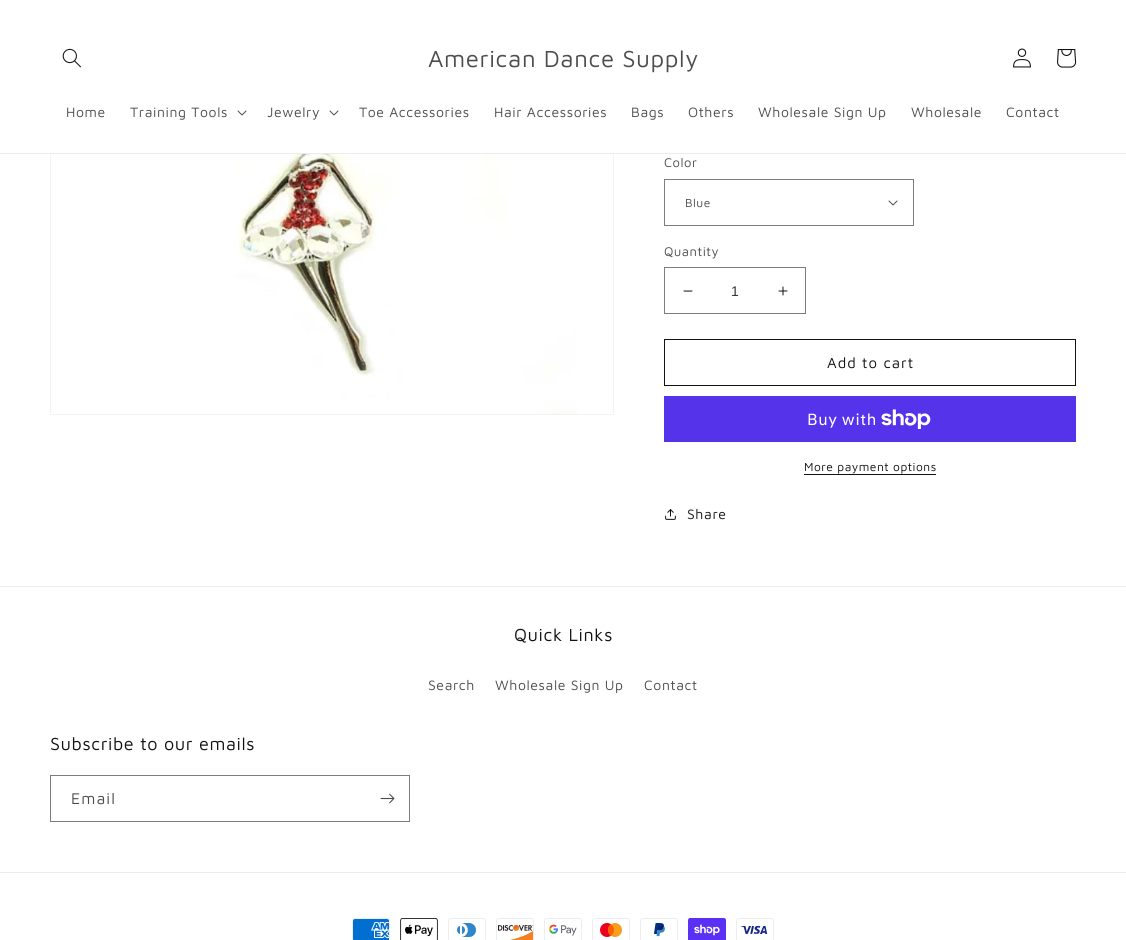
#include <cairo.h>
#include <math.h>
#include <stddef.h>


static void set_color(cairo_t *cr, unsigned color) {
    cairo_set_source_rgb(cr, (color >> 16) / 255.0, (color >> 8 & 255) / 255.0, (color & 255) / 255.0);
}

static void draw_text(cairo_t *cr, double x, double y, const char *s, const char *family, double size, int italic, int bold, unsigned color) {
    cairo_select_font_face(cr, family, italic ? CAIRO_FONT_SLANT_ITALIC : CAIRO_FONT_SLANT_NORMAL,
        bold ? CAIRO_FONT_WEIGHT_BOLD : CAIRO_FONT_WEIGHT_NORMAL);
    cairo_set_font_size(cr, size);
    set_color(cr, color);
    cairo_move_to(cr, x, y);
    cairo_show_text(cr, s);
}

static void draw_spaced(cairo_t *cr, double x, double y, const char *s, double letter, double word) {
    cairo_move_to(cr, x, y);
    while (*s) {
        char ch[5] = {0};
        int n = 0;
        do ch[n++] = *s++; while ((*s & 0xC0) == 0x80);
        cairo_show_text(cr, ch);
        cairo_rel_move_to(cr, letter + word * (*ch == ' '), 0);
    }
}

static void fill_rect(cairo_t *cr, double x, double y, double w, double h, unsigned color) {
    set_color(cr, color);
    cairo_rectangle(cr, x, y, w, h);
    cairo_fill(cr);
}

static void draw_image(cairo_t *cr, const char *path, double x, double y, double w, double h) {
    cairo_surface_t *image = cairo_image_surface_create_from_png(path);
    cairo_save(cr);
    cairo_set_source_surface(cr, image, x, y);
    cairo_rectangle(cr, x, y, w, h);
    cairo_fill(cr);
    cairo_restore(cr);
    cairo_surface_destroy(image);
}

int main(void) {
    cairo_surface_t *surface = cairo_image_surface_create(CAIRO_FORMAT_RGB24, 1126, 940);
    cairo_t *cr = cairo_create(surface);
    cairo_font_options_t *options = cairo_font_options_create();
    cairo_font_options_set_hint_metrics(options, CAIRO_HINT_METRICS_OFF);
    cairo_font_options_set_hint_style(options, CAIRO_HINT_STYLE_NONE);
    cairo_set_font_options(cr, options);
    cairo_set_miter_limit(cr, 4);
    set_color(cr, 0xFFFFFF);
    cairo_paint(cr);
    cairo_rectangle(cr, 50.5, -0.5, 563, 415);
    set_color(cr, 0xF3F3F3);
    cairo_set_line_width(cr, 1);
    cairo_stroke(cr);
    fill_rect(cr, 50, 0, 564, 153, 0xFFFFFF);
    fill_rect(cr, 0, 153, 1126, 1, 0xECECEC);
    draw_image(cr, "assets/img1.png", 62, 48, 19, 20);
    cairo_select_font_face(cr, "Maven Pro", CAIRO_FONT_SLANT_NORMAL, CAIRO_FONT_WEIGHT_NORMAL);
    cairo_set_font_size(cr, 24);
    set_color(cr, 0x4D4D4D);
    draw_spaced(cr, 428, 67, "American Dance Supply", 0.6, 0);
    draw_image(cr, "assets/img2.png", 1013, 48, 18, 20);
    draw_image(cr, "assets/img3.png", 1057, 49, 20, 19);
    cairo_set_font_size(cr, 14);
    draw_spaced(cr, 66, 117, "Home", 0.6, 0);
    draw_spaced(cr, 130, 117, "Training Tools", 0.6, 0);
    draw_image(cr, "assets/img4.png", 237, 110, 10, 6);
    draw_spaced(cr, 267, 117, "Jewelry", 0.6, 0);
    draw_image(cr, "assets/img4.png", 329, 110, 10, 6);
    draw_spaced(cr, 359, 117, "Toe Accessories", 0.6, 0);
    draw_spaced(cr, 494, 117, "Hair Accessories", 0.6, 0);
    draw_spaced(cr, 631, 117, "Bags", 0.6, 0);
    draw_spaced(cr, 688, 117, "Others", 0.6, 0);
    draw_spaced(cr, 758, 117, "Wholesale Sign Up", 0.6, 0);
    draw_spaced(cr, 911, 117, "Wholesale", 0.6, 0);
    draw_spaced(cr, 1006, 117, "Contact", 0.6, 0);
    draw_image(cr, "assets/img5.png", 234, 154, 343, 260);
    cairo_set_font_size(cr, 13);
    draw_spaced(cr, 664, 167, "Color", 0.5, 0);
    draw_image(cr, "assets/img4.png", 888, 200, 10, 6);
    cairo_rectangle(cr, 664.5, 179.5, 249, 46);
    set_color(cr, 0x7D7D7D);
    cairo_stroke(cr);
    cairo_set_font_size(cr, 12);
    set_color(cr, 0x4D4D4D);
    draw_spaced(cr, 685, 207, "Blue", 0.5, 0);
    cairo_set_font_size(cr, 13);
    draw_spaced(cr, 664, 256, "Quantity", 0.5, 0);
    draw_image(cr, "assets/img6.png", 683, 290, 10, 2);
    draw_image(cr, "assets/img7.png", 778, 286, 10, 10);
    cairo_rectangle(cr, 664.5, 267.5, 141, 46);
    set_color(cr, 0x7D7D7D);
    cairo_stroke(cr);
    draw_text(cr, 731, 296, "1", "Liberation Sans", 14, 0, 0, 0x363636);
    cairo_rectangle(cr, 664.5, 339.5, 411, 46);
    set_color(cr, 0x121212);
    cairo_stroke(cr);
    cairo_select_font_face(cr, "Maven Pro", CAIRO_FONT_SLANT_NORMAL, CAIRO_FONT_WEIGHT_NORMAL);
    cairo_set_font_size(cr, 15);
    draw_spaced(cr, 827, 368, "Add to cart", 1, 0);
    fill_rect(cr, 664, 396, 412, 46, 0x5433EB);
    cairo_select_font_face(cr, "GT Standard", CAIRO_FONT_SLANT_NORMAL, CAIRO_FONT_WEIGHT_NORMAL);
    cairo_set_font_size(cr, 16);
    set_color(cr, 0xFFFFFF);
    draw_spaced(cr, 807, 425, "Buy with", 0.6, 0);
    draw_image(cr, "assets/img8.png", 881, 409, 50, 20);
    cairo_select_font_face(cr, "Maven Pro", CAIRO_FONT_SLANT_NORMAL, CAIRO_FONT_WEIGHT_NORMAL);
    cairo_set_font_size(cr, 12);
    set_color(cr, 0x121212);
    draw_spaced(cr, 804, 471, "More payment options", 0.5, 0);
    fill_rect(cr, 804, 474, 132, 1, 0x121212);
    draw_image(cr, "assets/img9.png", 665, 509, 11, 11);
    cairo_set_font_size(cr, 14);
    draw_spaced(cr, 687, 519, "Share", 0.6, 0);
    fill_rect(cr, 0, 586, 1126, 1, 0xECECEC);
    cairo_set_font_size(cr, 18);
    set_color(cr, 0x121212);
    draw_spaced(cr, 514, 641, "Quick Links", 0.6, 0);
    cairo_set_font_size(cr, 14);
    set_color(cr, 0x4D4D4D);
    draw_spaced(cr, 428, 690, "Search", 0.6, 0);
    draw_spaced(cr, 495, 690, "Wholesale Sign Up", 0.6, 0);
    draw_spaced(cr, 644, 690, "Contact", 0.6, 0);
    cairo_set_font_size(cr, 18);
    set_color(cr, 0x121212);
    draw_spaced(cr, 50, 750, "Subscribe to our emails", 0.6, 0);
    cairo_rectangle(cr, 50.5, 775.5, 359, 46);
    set_color(cr, 0x7D7D7D);
    cairo_stroke(cr);
    cairo_set_font_size(cr, 16);
    set_color(cr, 0x4D4D4D);
    draw_spaced(cr, 71, 804, "Email", 1, 0);
    draw_image(cr, "assets/img10.png", 380, 793, 15, 11);
    fill_rect(cr, 0, 872, 1126, 1, 0xECECEC);
    draw_image(cr, "assets/img11.png", 352, 918, 38, 22);
    draw_image(cr, "assets/img12.png", 400, 918, 38, 22);
    draw_image(cr, "assets/img13.png", 448, 918, 38, 22);
    draw_image(cr, "assets/img14.png", 496, 918, 38, 22);
    draw_image(cr, "assets/img15.png", 544, 918, 38, 22);
    draw_image(cr, "assets/img16.png", 592, 918, 38, 22);
    draw_image(cr, "assets/img17.png", 640, 918, 38, 22);
    draw_image(cr, "assets/img18.png", 688, 918, 38, 22);
    draw_image(cr, "assets/img19.png", 736, 918, 38, 22);
    cairo_surface_write_to_png(surface, "output.png");
    cairo_font_options_destroy(options);
    cairo_destroy(cr);
    cairo_surface_destroy(surface);
    return 0;
}
